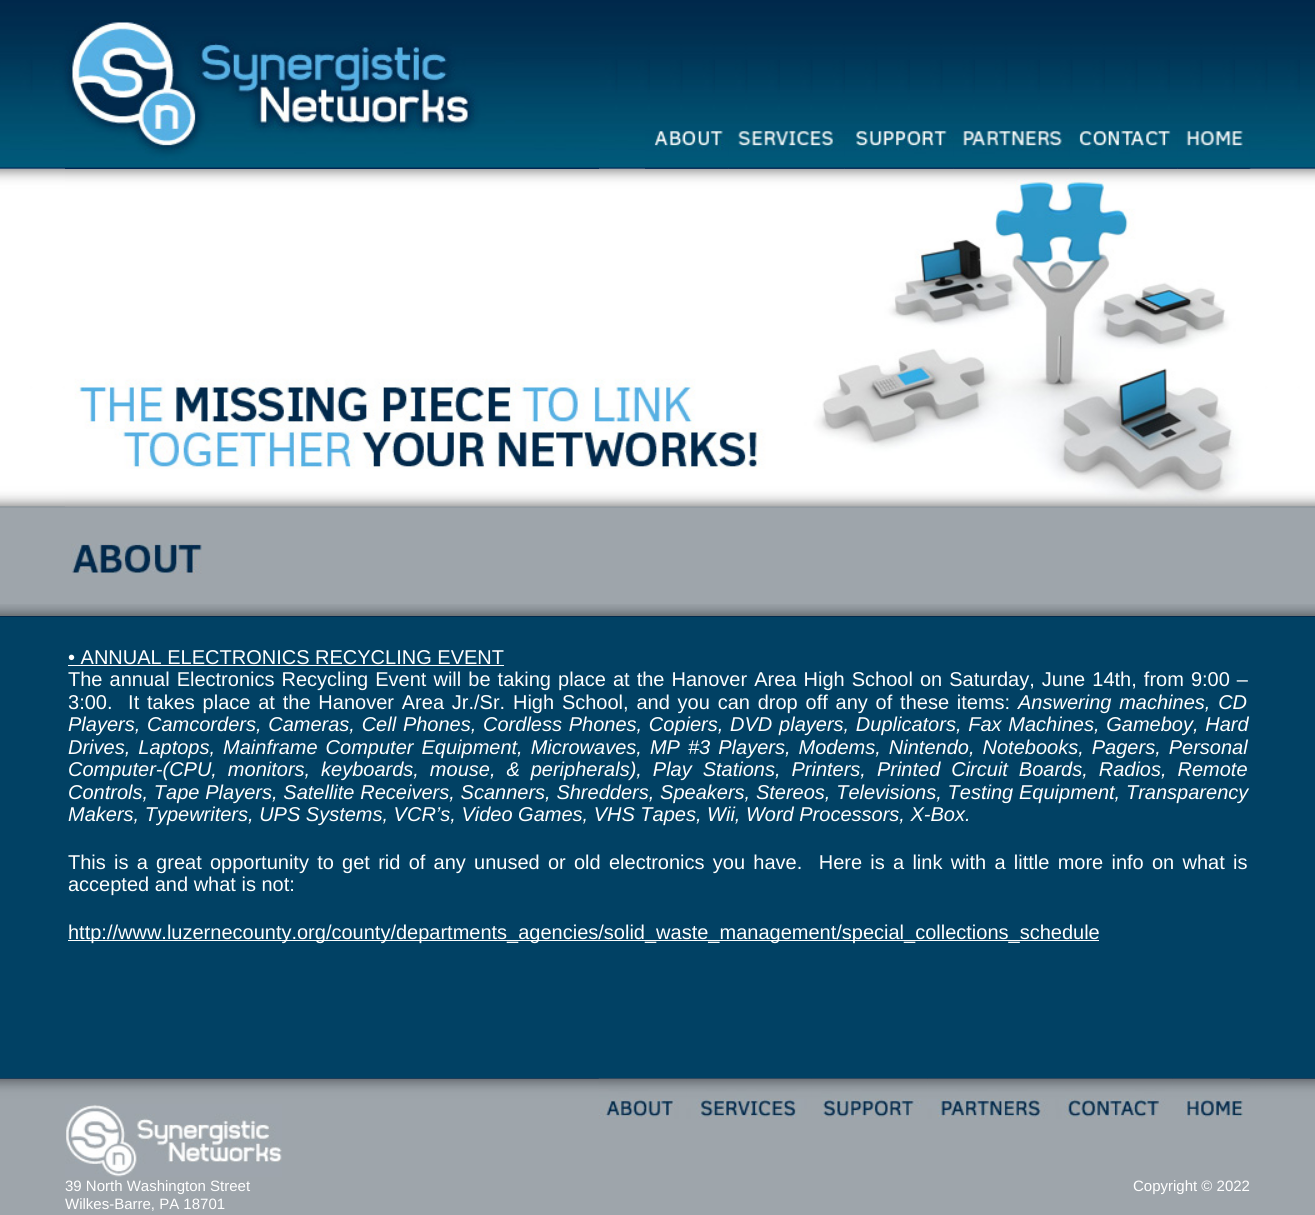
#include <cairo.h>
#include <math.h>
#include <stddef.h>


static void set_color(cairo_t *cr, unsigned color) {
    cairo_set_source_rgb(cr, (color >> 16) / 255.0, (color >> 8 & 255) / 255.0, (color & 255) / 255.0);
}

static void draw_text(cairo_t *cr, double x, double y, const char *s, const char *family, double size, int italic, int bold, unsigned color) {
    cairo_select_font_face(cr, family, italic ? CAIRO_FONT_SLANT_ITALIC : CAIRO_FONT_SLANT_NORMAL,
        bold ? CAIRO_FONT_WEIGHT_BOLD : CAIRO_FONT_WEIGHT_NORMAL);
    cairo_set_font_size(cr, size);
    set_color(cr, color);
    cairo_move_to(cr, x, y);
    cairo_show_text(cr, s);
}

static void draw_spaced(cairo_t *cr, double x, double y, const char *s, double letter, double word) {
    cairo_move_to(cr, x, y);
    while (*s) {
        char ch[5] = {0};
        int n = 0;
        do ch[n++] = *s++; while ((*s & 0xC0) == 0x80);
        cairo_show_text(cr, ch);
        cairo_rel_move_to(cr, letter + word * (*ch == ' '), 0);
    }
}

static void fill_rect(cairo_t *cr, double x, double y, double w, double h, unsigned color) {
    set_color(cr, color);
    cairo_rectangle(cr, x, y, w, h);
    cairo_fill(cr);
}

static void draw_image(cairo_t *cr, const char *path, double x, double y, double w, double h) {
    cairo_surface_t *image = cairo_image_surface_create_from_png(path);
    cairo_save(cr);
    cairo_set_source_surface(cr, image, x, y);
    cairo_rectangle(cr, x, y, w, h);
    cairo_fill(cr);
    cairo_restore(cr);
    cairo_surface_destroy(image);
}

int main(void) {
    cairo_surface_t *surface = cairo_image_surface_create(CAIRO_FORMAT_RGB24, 1315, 1215);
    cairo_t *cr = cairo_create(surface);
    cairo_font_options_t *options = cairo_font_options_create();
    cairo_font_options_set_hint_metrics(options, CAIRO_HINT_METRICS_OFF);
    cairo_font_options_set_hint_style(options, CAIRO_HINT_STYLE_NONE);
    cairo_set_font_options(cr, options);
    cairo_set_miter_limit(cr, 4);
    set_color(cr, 0xFFFFFF);
    cairo_paint(cr);
    fill_rect(cr, 0, 506, 1315, 98, 0x9EA5AB);
    draw_image(cr, "assets/img11.png", 0, 506, 1315, 2);
    draw_image(cr, "assets/img9.png", 0, 168, 1315, 339);
    draw_image(cr, "assets/img10.png", 65, 168, 1185, 339);
    draw_image(cr, "assets/img1.png", 0, 0, 1315, 169);
    draw_image(cr, "assets/img2.png", 65, 20, 534, 149);
    draw_image(cr, "assets/img3.png", 645, 130, 84, 39);
    draw_image(cr, "assets/img4.png", 729, 130, 117, 39);
    draw_image(cr, "assets/img5.png", 845, 130, 109, 39);
    draw_image(cr, "assets/img6.png", 953, 130, 118, 39);
    draw_image(cr, "assets/img7.png", 1070, 130, 108, 39);
    draw_image(cr, "assets/img8.png", 1177, 130, 74, 39);
    draw_image(cr, "assets/img12.png", 71, 543, 131, 31);
    draw_image(cr, "assets/img13.png", 0, 604, 1315, 12);
    fill_rect(cr, 0, 617, 1315, 461, 0x014164);
    fill_rect(cr, 0, 616, 1315, 1, 0x01294C);
    fill_rect(cr, 0, 1078, 1315, 1, 0x01294C);
    draw_text(cr, 68, 664, "• ANNUAL ELECTRONICS RECYCLING EVENT", "Liberation Sans", 20, 0, 0, 0xFFFFFF);
    fill_rect(cr, 68, 665, 436, 1, 0xFFFFFF);
    draw_spaced(cr, 68, 686, "The annual Electronics Recycling Event will be taking place at the Hanover Area High School on Saturday, June 14th, from 9:00 –", 0, 1.5);
    draw_spaced(cr, 68, 709, "3:00.  It takes place at the Hanover Area Jr./Sr. High School, and you can drop off any of these items:", 0, 2.25);
    cairo_select_font_face(cr, "Liberation Sans", CAIRO_FONT_SLANT_ITALIC, CAIRO_FONT_WEIGHT_NORMAL);
    draw_spaced(cr, 1018, 709, "Answering machines, CD", 0, 2.25);
    draw_spaced(cr, 68, 731, "Players, Camcorders, Cameras, Cell Phones, Cordless Phones, Copiers, DVD players, Duplicators, Fax Machines, Gameboy, Hard", 0, 1.2);
    draw_spaced(cr, 68, 754, "Drives, Laptops, Mainframe Computer Equipment, Microwaves, MP #3 Players, Modems, Nintendo, Notebooks, Pagers, Personal", 0, 2.5);
    draw_spaced(cr, 68, 776, "Computer-(CPU, monitors, keyboards, mouse, & peripherals), Play Stations, Printers, Printed Circuit Boards, Radios, Remote", 0, 5.4);
    draw_spaced(cr, 68, 799, "Controls, Tape Players, Satellite Receivers, Scanners, Shredders, Speakers, Stereos, Televisions, Testing Equipment, Transparency", 0, 0.25);
    draw_text(cr, 68, 821, "Makers, Typewriters, UPS Systems, VCR’s, Video Games, VHS Tapes, Wii, Word Processors, X-Box.", "Liberation Sans", 20, 1, 0, 0xFFFFFF);
    cairo_select_font_face(cr, "Liberation Sans", CAIRO_FONT_SLANT_NORMAL, CAIRO_FONT_WEIGHT_NORMAL);
    draw_spaced(cr, 68, 869, "This is a great opportunity to get rid of any unused or old electronics you have.  Here is a link with a little more info on what is", 0, 2.7);
    draw_text(cr, 68, 891, "accepted and what is not:", "Liberation Sans", 20, 0, 0, 0xFFFFFF);
    fill_rect(cr, 68, 940, 1031, 1, 0xFFFFFF);
    draw_text(cr, 68, 939, "http://www.luzernecounty.org/county/departments_agencies/solid_waste_management/special_collections_schedule", "Liberation Sans", 20, 0, 0, 0xFFFFFF);
    draw_image(cr, "assets/img14.png", 0, 1078, 1315, 137);
    draw_image(cr, "assets/img15.png", 598, 1078, 89, 41);
    draw_image(cr, "assets/img16.png", 686, 1078, 126, 41);
    draw_image(cr, "assets/img17.png", 811, 1078, 117, 41);
    draw_image(cr, "assets/img18.png", 927, 1078, 128, 41);
    draw_image(cr, "assets/img19.png", 1055, 1078, 118, 41);
    draw_image(cr, "assets/img20.png", 1172, 1078, 78, 41);
    draw_image(cr, "assets/img21.png", 65, 1104, 217, 73);
    draw_text(cr, 65, 1191, "39 North Washington Street", "Liberation Sans", 15, 0, 0, 0xFFFFFF);
    draw_text(cr, 65, 1209, "Wilkes-Barre, PA 18701", "Liberation Sans", 15, 0, 0, 0xFFFFFF);
    draw_text(cr, 1133, 1191, "Copyright © 2022", "Liberation Sans", 15, 0, 0, 0xFFFFFF);
    cairo_surface_write_to_png(surface, "output.png");
    cairo_font_options_destroy(options);
    cairo_destroy(cr);
    cairo_surface_destroy(surface);
    return 0;
}
